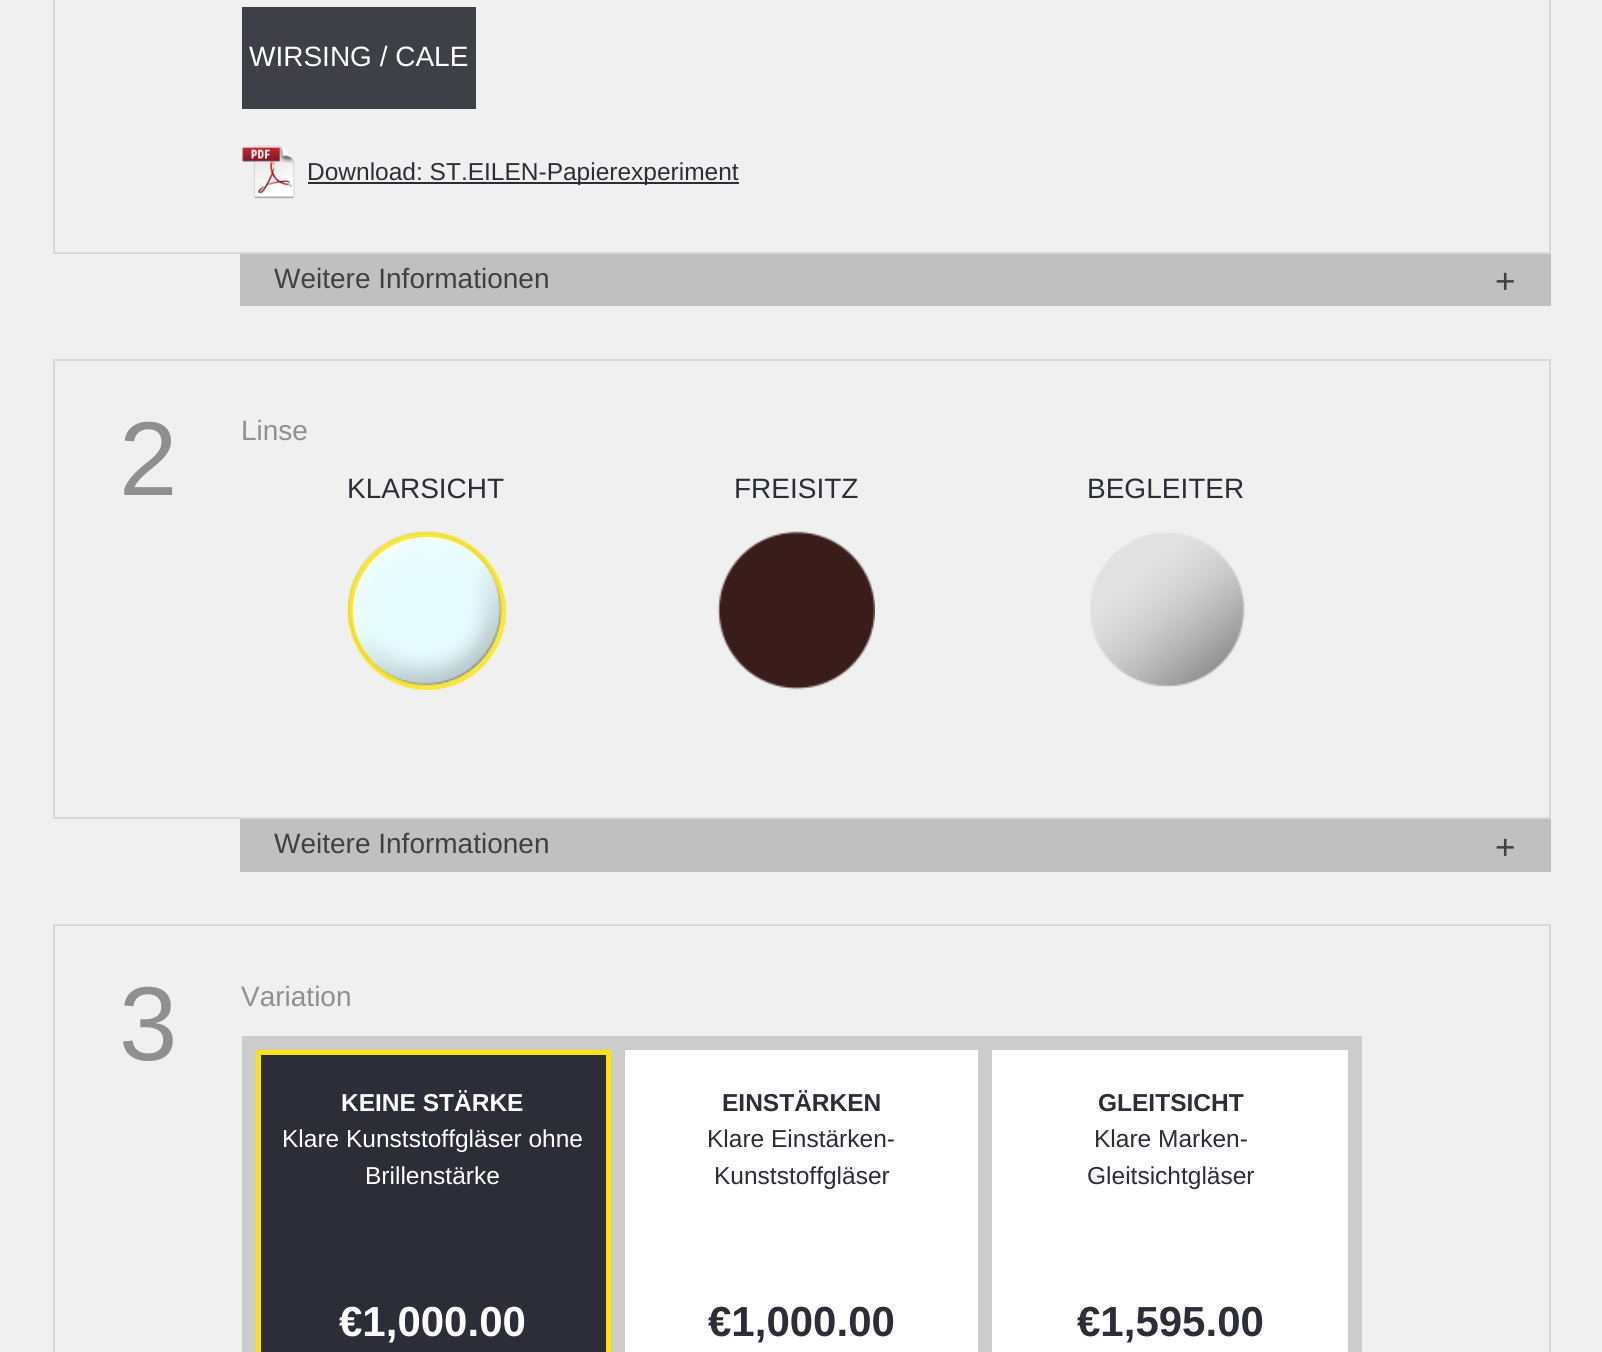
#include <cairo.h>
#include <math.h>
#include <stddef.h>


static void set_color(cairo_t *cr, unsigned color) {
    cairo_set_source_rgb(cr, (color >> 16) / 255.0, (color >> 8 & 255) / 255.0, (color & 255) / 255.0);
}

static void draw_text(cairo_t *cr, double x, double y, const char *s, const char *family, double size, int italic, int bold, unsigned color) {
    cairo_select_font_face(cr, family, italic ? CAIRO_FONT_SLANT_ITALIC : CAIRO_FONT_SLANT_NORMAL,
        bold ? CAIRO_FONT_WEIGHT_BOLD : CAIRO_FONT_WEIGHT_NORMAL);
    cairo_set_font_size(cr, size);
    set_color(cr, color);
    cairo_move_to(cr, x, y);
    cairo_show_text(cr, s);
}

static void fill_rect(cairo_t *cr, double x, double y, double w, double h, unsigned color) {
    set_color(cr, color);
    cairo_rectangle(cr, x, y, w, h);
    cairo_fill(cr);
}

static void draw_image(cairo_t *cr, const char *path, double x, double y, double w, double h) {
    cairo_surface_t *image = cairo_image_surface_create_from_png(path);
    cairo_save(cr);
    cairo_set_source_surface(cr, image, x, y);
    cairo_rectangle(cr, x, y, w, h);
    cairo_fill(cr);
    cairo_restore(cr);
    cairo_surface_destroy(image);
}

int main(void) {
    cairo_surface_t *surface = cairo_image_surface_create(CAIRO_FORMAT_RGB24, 1602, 1352);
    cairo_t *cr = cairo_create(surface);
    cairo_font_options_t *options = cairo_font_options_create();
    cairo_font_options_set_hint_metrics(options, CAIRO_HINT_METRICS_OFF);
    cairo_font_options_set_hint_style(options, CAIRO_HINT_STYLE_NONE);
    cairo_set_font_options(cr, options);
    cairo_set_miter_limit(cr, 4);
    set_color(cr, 0xF0F0F0);
    cairo_paint(cr);
    cairo_rectangle(cr, 54, -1, 1496, 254);
    set_color(cr, 0xD8D8D8);
    cairo_stroke(cr);
    fill_rect(cr, 242, 7, 234, 102, 0x3F3F48);
    draw_text(cr, 249, 66, "WIRSING / CALE", "Liberation Sans", 28, 0, 0, 0xFFFFFF);
    draw_image(cr, "assets/img1.png", 242, 145, 53, 54);
    fill_rect(cr, 308, 182, 431, 2, 0x2D2D37);
    draw_text(cr, 307, 180, "Download: ST.EILEN-Papierexperiment", "Liberation Sans", 24.5, 0, 0, 0x2D2D37);
    fill_rect(cr, 240, 254, 1311, 52, 0xC0C0C0);
    draw_text(cr, 274, 288, "Weitere Informationen", "Liberation Sans", 28, 0, 0, 0x404040);
    draw_text(cr, 1495, 293, "+", "Liberation Sans", 35, 0, 0, 0x404040);
    cairo_rectangle(cr, 54, 360, 1496, 458);
    set_color(cr, 0xD8D8D8);
    cairo_stroke(cr);
    draw_text(cr, 119, 495, "2", "Liberation Sans", 105, 0, 0, 0x8F8F8F);
    draw_text(cr, 241, 440, "Linse", "Liberation Sans", 28, 0, 0, 0x8F8F8F);
    draw_image(cr, "assets/img2.png", 348, 531, 155, 155);
    draw_text(cr, 347, 498, "KLARSICHT", "Liberation Sans", 28, 0, 0, 0x2D2D37);
    cairo_new_path(cr);
    cairo_arc(cr, 427, 611, 76.5, 0, 2 * M_PI);
    cairo_set_source_rgba(cr, 1, 0.894, 0.012, 0.8);
    cairo_set_line_width(cr, 5);
    cairo_stroke(cr);
    draw_image(cr, "assets/img3.png", 717, 531, 158, 159);
    draw_text(cr, 734, 498, "FREISITZ", "Liberation Sans", 28, 0, 0, 0x2D2D37);
    draw_image(cr, "assets/img4.png", 1089, 532, 156, 156);
    draw_text(cr, 1087, 498, "BEGLEITER", "Liberation Sans", 28, 0, 0, 0x2D2D37);
    fill_rect(cr, 240, 819, 1311, 53, 0xC0C0C0);
    draw_text(cr, 274, 853, "Weitere Informationen", "Liberation Sans", 28, 0, 0, 0x404040);
    draw_text(cr, 1495, 859, "+", "Liberation Sans", 35, 0, 0, 0x404040);
    cairo_rectangle(cr, 54, 925, 1496, 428);
    set_color(cr, 0xD8D8D8);
    cairo_set_line_width(cr, 2);
    cairo_stroke(cr);
    draw_text(cr, 119, 1060, "3", "Liberation Sans", 105, 0, 0, 0x8F8F8F);
    draw_text(cr, 241, 1006, "Variation", "Liberation Sans", 28, 0, 0, 0x8F8F8F);
    fill_rect(cr, 242, 1036, 1120, 316, 0xCCCCCC);
    fill_rect(cr, 261, 1055, 345, 297, 0x2D2D37);
    cairo_rectangle(cr, 258.5, 1052.5, 350, 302);
    set_color(cr, 0xFFE403);
    cairo_set_line_width(cr, 5);
    cairo_stroke(cr);
    draw_text(cr, 341, 1111, "KEINE STÄRKE", "Liberation Sans", 24.5, 0, 1, 0xFFFFFF);
    draw_text(cr, 282, 1147, "Klare Kunststoffgläser ohne", "Liberation Sans", 24.5, 0, 0, 0xFFFFFF);
    draw_text(cr, 365, 1184, "Brillenstärke", "Liberation Sans", 24.5, 0, 0, 0xFFFFFF);
    draw_text(cr, 339, 1336, "€1,000.00", "Liberation Sans", 42, 0, 1, 0xFFFFFF);
    fill_rect(cr, 625, 1050, 353, 302, 0xFFFFFF);
    draw_text(cr, 722, 1111, "EINSTÄRKEN", "Liberation Sans", 24.5, 0, 1, 0x2D2D37);
    draw_text(cr, 707, 1147, "Klare Einstärken-", "Liberation Sans", 24.5, 0, 0, 0x2D2D37);
    draw_text(cr, 714, 1184, "Kunststoffgläser", "Liberation Sans", 24.5, 0, 0, 0x2D2D37);
    draw_text(cr, 708, 1336, "€1,000.00", "Liberation Sans", 42, 0, 1, 0x2D2D37);
    fill_rect(cr, 992, 1050, 356, 302, 0xFFFFFF);
    draw_text(cr, 1098, 1111, "GLEITSICHT", "Liberation Sans", 24.5, 0, 1, 0x2D2D37);
    draw_text(cr, 1094, 1147, "Klare Marken-", "Liberation Sans", 24.5, 0, 0, 0x2D2D37);
    draw_text(cr, 1087, 1184, "Gleitsichtgläser", "Liberation Sans", 24.5, 0, 0, 0x2D2D37);
    draw_text(cr, 1077, 1336, "€1,595.00", "Liberation Sans", 42, 0, 1, 0x2D2D37);
    cairo_surface_write_to_png(surface, "output.png");
    cairo_font_options_destroy(options);
    cairo_destroy(cr);
    cairo_surface_destroy(surface);
    return 0;
}
